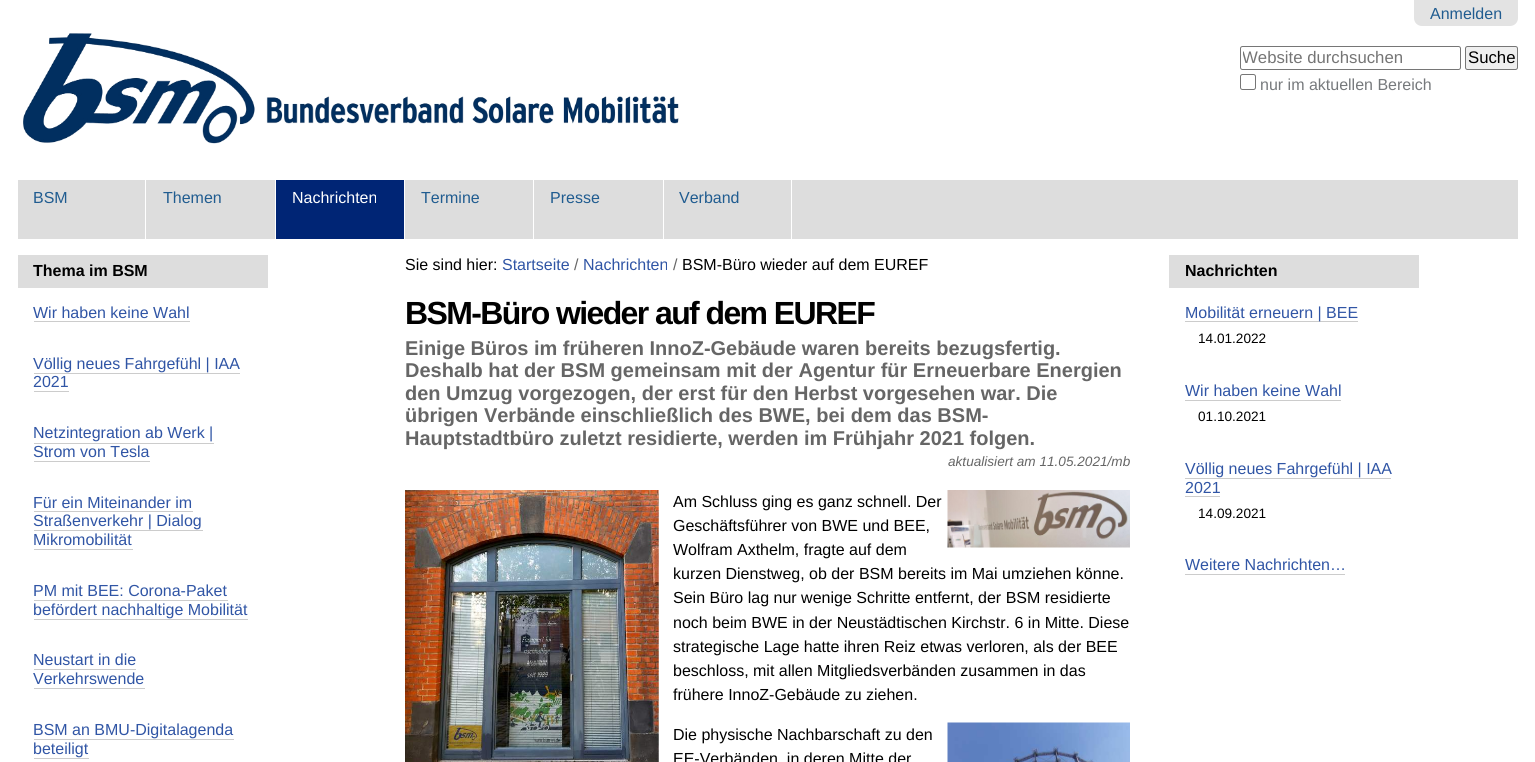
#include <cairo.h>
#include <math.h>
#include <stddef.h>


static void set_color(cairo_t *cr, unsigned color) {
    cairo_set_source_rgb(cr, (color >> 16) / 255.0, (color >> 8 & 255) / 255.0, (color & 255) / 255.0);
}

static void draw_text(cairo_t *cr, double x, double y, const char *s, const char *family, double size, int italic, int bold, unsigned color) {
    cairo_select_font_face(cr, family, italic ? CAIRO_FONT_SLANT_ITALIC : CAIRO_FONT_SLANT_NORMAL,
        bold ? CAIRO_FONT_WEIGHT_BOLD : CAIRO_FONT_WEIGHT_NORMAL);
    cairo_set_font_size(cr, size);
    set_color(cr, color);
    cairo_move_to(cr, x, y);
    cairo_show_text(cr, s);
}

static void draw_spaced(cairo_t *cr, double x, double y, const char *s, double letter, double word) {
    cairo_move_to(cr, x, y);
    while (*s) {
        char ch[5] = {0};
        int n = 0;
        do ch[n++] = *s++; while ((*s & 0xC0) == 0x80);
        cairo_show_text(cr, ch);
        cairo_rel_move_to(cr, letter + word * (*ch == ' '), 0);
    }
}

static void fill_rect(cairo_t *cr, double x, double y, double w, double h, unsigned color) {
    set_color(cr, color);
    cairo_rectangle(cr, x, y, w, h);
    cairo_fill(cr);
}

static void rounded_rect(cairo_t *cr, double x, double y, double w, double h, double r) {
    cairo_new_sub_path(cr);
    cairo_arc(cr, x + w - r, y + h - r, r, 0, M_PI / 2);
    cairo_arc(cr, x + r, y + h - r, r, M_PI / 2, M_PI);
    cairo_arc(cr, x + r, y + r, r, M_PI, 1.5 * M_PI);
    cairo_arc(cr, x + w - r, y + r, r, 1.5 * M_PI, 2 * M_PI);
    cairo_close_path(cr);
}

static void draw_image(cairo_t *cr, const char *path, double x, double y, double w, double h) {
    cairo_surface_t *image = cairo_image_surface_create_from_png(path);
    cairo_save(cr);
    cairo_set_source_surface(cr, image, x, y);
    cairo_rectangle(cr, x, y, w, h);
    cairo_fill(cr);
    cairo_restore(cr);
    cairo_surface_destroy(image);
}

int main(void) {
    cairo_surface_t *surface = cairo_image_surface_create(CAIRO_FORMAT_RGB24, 1535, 762);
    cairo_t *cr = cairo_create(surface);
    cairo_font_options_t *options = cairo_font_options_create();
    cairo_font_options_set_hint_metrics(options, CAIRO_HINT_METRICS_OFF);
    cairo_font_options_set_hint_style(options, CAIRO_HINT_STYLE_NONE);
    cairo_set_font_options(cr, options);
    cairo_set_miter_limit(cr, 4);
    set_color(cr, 0xFFFFFF);
    cairo_paint(cr);
    set_color(cr, 0xE3E3E3);
    cairo_new_path(cr);
    cairo_move_to(cr, 1414, 0);
    cairo_line_to(cr, 1518, 0);
    cairo_line_to(cr, 1518, 18);
    cairo_curve_to(cr, 1518, 22.5, 1514.5, 26, 1510, 26);
    cairo_line_to(cr, 1422, 26);
    cairo_curve_to(cr, 1417.5, 26, 1414, 22.5, 1414, 18);
    cairo_close_path(cr);
    cairo_fill(cr);
    draw_text(cr, 1430, 19, "Anmelden", "Liberation Sans", 16, 0, 0, 0x205C90);
    draw_image(cr, "assets/img1.png", 23, 33, 656, 111);
    rounded_rect(cr, 1240.5, 46.5, 220, 23, 2);
    set_color(cr, 0x767676);
    cairo_set_line_width(cr, 1);
    cairo_stroke(cr);
    cairo_save(cr);
    cairo_rectangle(cr, 1243, 49, 216, 19);
    cairo_clip(cr);
    draw_text(cr, 1242, 63, "Website durchsuchen", "Liberation Sans", 16.75, 0, 0, 0x757575);
    cairo_restore(cr);
    set_color(cr, 0xEFEFEF);
    rounded_rect(cr, 1465.5, 46.5, 52, 23, 2);
    cairo_fill_preserve(cr);
    set_color(cr, 0x767676);
    cairo_stroke(cr);
    draw_text(cr, 1468, 63, "Suche", "Liberation Sans", 16.75, 0, 0, 0x000000);
    rounded_rect(cr, 1240.5, 74.5, 15, 15, 2);
    set_color(cr, 0x767676);
    cairo_stroke(cr);
    draw_text(cr, 1260, 90, "nur im aktuellen Bereich", "Liberation Sans", 16, 0, 0, 0x76797C);
    fill_rect(cr, 18, 180, 1500, 59, 0xDDDDDD);
    fill_rect(cr, 145, 180, 1, 59, 0xFFFFFF);
    draw_text(cr, 33, 203, "BSM", "Liberation Sans", 16, 0, 0, 0x205C90);
    fill_rect(cr, 275, 180, 1, 59, 0xFFFFFF);
    draw_text(cr, 163, 203, "Themen", "Liberation Sans", 16, 0, 0, 0x205C90);
    fill_rect(cr, 276, 180, 128, 59, 0x002575);
    fill_rect(cr, 404, 180, 1, 59, 0xFFFFFF);
    draw_text(cr, 292, 203, "Nachrichten", "Liberation Sans", 16, 0, 0, 0xFFFFFF);
    fill_rect(cr, 533, 180, 1, 59, 0xFFFFFF);
    draw_text(cr, 421, 203, "Termine", "Liberation Sans", 16, 0, 0, 0x205C90);
    fill_rect(cr, 663, 180, 1, 59, 0xFFFFFF);
    draw_text(cr, 550, 203, "Presse", "Liberation Sans", 16, 0, 0, 0x205C90);
    fill_rect(cr, 791, 180, 1, 59, 0xFFFFFF);
    draw_text(cr, 679, 203, "Verband", "Liberation Sans", 16, 0, 0, 0x205C90);
    fill_rect(cr, 18, 255, 250, 33, 0xDDDDDD);
    draw_text(cr, 33, 276, "Thema im BSM", "Liberation Sans", 16, 0, 1, 0x000000);
    draw_text(cr, 33, 318, "Wir haben keine Wahl", "Liberation Sans", 16, 0, 0, 0x3055A5);
    fill_rect(cr, 34, 321, 156, 1, 0xCCCCCC);
    draw_text(cr, 33, 369, "Völlig neues Fahrgefühl | IAA", "Liberation Sans", 16, 0, 0, 0x3055A5);
    draw_text(cr, 33, 387, "2021", "Liberation Sans", 16, 0, 0, 0x3055A5);
    fill_rect(cr, 34, 373, 206, 1, 0xCCCCCC);
    fill_rect(cr, 34, 391, 35, 1, 0xCCCCCC);
    draw_text(cr, 33, 438, "Netzintegration ab Werk |", "Liberation Sans", 16, 0, 0, 0x3055A5);
    draw_text(cr, 33, 457, "Strom von Tesla", "Liberation Sans", 16, 0, 0, 0x3055A5);
    fill_rect(cr, 34, 443, 180, 1, 0xCCCCCC);
    fill_rect(cr, 34, 461, 116, 1, 0xCCCCCC);
    draw_text(cr, 33, 508, "Für ein Miteinander im", "Liberation Sans", 16, 0, 0, 0x3055A5);
    fill_rect(cr, 34, 511, 159, 1, 0xCCCCCC);
    draw_text(cr, 33, 526, "Straßenverkehr | Dialog", "Liberation Sans", 16, 0, 0, 0x3055A5);
    fill_rect(cr, 34, 530, 169, 1, 0xCCCCCC);
    draw_text(cr, 33, 545, "Mikromobilität", "Liberation Sans", 16, 0, 0, 0x3055A5);
    fill_rect(cr, 34, 549, 99, 1, 0xCCCCCC);
    draw_text(cr, 33, 596, "PM mit BEE: Corona-Paket", "Liberation Sans", 16, 0, 0, 0x3055A5);
    fill_rect(cr, 34, 600, 194, 1, 0xCCCCCC);
    draw_text(cr, 33, 615, "befördert nachhaltige Mobilität", "Liberation Sans", 16, 0, 0, 0x3055A5);
    fill_rect(cr, 34, 619, 214, 1, 0xCCCCCC);
    draw_text(cr, 33, 665, "Neustart in die", "Liberation Sans", 16, 0, 0, 0x3055A5);
    draw_text(cr, 33, 684, "Verkehrswende", "Liberation Sans", 16, 0, 0, 0x3055A5);
    fill_rect(cr, 34, 669, 102, 1, 0xCCCCCC);
    fill_rect(cr, 34, 688, 111, 1, 0xCCCCCC);
    draw_text(cr, 33, 735, "BSM an BMU-Digitalagenda", "Liberation Sans", 16, 0, 0, 0x3055A5);
    fill_rect(cr, 34, 739, 200, 1, 0xCCCCCC);
    draw_text(cr, 33, 754, "beteiligt", "Liberation Sans", 16, 0, 0, 0x3055A5);
    fill_rect(cr, 34, 758, 55, 1, 0xCCCCCC);
    draw_text(cr, 405, 270, "Sie sind hier:", "Liberation Sans", 16, 0, 0, 0x000000);
    draw_text(cr, 502, 270, "Startseite", "Liberation Sans", 16, 0, 0, 0x3055A5);
    draw_text(cr, 574, 270, "/", "Liberation Sans", 16, 0, 0, 0x666666);
    draw_text(cr, 583, 270, "Nachrichten", "Liberation Sans", 16, 0, 0, 0x3055A5);
    draw_text(cr, 673, 270, "/", "Liberation Sans", 16, 0, 0, 0x666666);
    draw_text(cr, 682, 270, "BSM-Büro wieder auf dem EUREF", "Liberation Sans", 16, 0, 0, 0x000000);
    cairo_select_font_face(cr, "Liberation Sans", CAIRO_FONT_SLANT_NORMAL, CAIRO_FONT_WEIGHT_BOLD);
    cairo_set_font_size(cr, 32);
    draw_spaced(cr, 405, 324, "BSM-Büro wieder auf dem EUREF", -1.6, 0);
    draw_text(cr, 405, 355, "Einige Büros im früheren InnoZ-Gebäude waren bereits bezugsfertig.", "Liberation Sans", 20, 0, 1, 0x666666);
    draw_text(cr, 405, 377, "Deshalb hat der BSM gemeinsam mit der Agentur für Erneuerbare Energien", "Liberation Sans", 20, 0, 1, 0x666666);
    draw_text(cr, 405, 400, "den Umzug vorgezogen, der erst für den Herbst vorgesehen war. Die", "Liberation Sans", 20, 0, 1, 0x666666);
    draw_text(cr, 405, 422, "übrigen Verbände einschließlich des BWE, bei dem das BSM-", "Liberation Sans", 20, 0, 1, 0x666666);
    draw_text(cr, 405, 445, "Hauptstadtbüro zuletzt residierte, werden im Frühjahr 2021 folgen.", "Liberation Sans", 20, 0, 1, 0x666666);
    draw_text(cr, 948, 466, "aktualisiert am 11.05.2021/mb", "Liberation Sans", 13.6, 1, 0, 0x666666);
    draw_image(cr, "assets/img2.png", 405, 490, 254, 272);
    draw_text(cr, 673, 507, "Am Schluss ging es ganz schnell. Der", "Liberation Sans", 16, 0, 0, 0x000000);
    draw_image(cr, "assets/img3.png", 947, 490, 183, 58);
    draw_text(cr, 673, 531, "Geschäftsführer von BWE und BEE,", "Liberation Sans", 16, 0, 0, 0x000000);
    draw_text(cr, 673, 555, "Wolfram Axthelm, fragte auf dem", "Liberation Sans", 16, 0, 0, 0x000000);
    draw_text(cr, 673, 579, "kurzen Dienstweg, ob der BSM bereits im Mai umziehen könne.", "Liberation Sans", 16, 0, 0, 0x000000);
    draw_text(cr, 673, 603, "Sein Büro lag nur wenige Schritte entfernt, der BSM residierte", "Liberation Sans", 16, 0, 0, 0x000000);
    draw_text(cr, 673, 628, "noch beim BWE in der Neustädtischen Kirchstr. 6 in Mitte. Diese", "Liberation Sans", 16, 0, 0, 0x000000);
    draw_text(cr, 673, 652, "strategische Lage hatte ihren Reiz etwas verloren, als der BEE", "Liberation Sans", 16, 0, 0, 0x000000);
    draw_text(cr, 673, 676, "beschloss, mit allen Mitgliedsverbänden zusammen in das", "Liberation Sans", 16, 0, 0, 0x000000);
    draw_text(cr, 673, 700, "frühere InnoZ-Gebäude zu ziehen.", "Liberation Sans", 16, 0, 0, 0x000000);
    draw_text(cr, 673, 740, "Die physische Nachbarschaft zu den", "Liberation Sans", 16, 0, 0, 0x000000);
    draw_text(cr, 673, 764, "EE-Verbänden, in deren Mitte der", "Liberation Sans", 16, 0, 0, 0x000000);
    draw_image(cr, "assets/img4.png", 947, 722, 183, 40);
    fill_rect(cr, 1169, 255, 250, 33, 0xDDDDDD);
    draw_text(cr, 1185, 276, "Nachrichten", "Liberation Sans", 16, 0, 1, 0x000000);
    fill_rect(cr, 1185, 321, 173, 1, 0xCCCCCC);
    draw_text(cr, 1185, 318, "Mobilität erneuern | BEE", "Liberation Sans", 16, 0, 0, 0x3055A5);
    draw_text(cr, 1198, 343, "14.01.2022", "Liberation Sans", 13.6, 0, 0, 0x000000);
    draw_text(cr, 1185, 396, "Wir haben keine Wahl", "Liberation Sans", 16, 0, 0, 0x3055A5);
    fill_rect(cr, 1185, 400, 156, 1, 0xCCCCCC);
    draw_text(cr, 1198, 421, "01.10.2021", "Liberation Sans", 13.6, 0, 0, 0x000000);
    draw_text(cr, 1185, 474, "Völlig neues Fahrgefühl | IAA", "Liberation Sans", 16, 0, 0, 0x3055A5);
    fill_rect(cr, 1185, 478, 206, 1, 0xCCCCCC);
    draw_text(cr, 1185, 493, "2021", "Liberation Sans", 16, 0, 0, 0x3055A5);
    fill_rect(cr, 1185, 496, 35, 1, 0xCCCCCC);
    draw_text(cr, 1198, 518, "14.09.2021", "Liberation Sans", 13.6, 0, 0, 0x000000);
    draw_text(cr, 1185, 570, "Weitere Nachrichten…", "Liberation Sans", 16, 0, 0, 0x3055A5);
    fill_rect(cr, 1185, 574, 160, 1, 0xCCCCCC);
    cairo_surface_write_to_png(surface, "output.png");
    cairo_font_options_destroy(options);
    cairo_destroy(cr);
    cairo_surface_destroy(surface);
    return 0;
}
